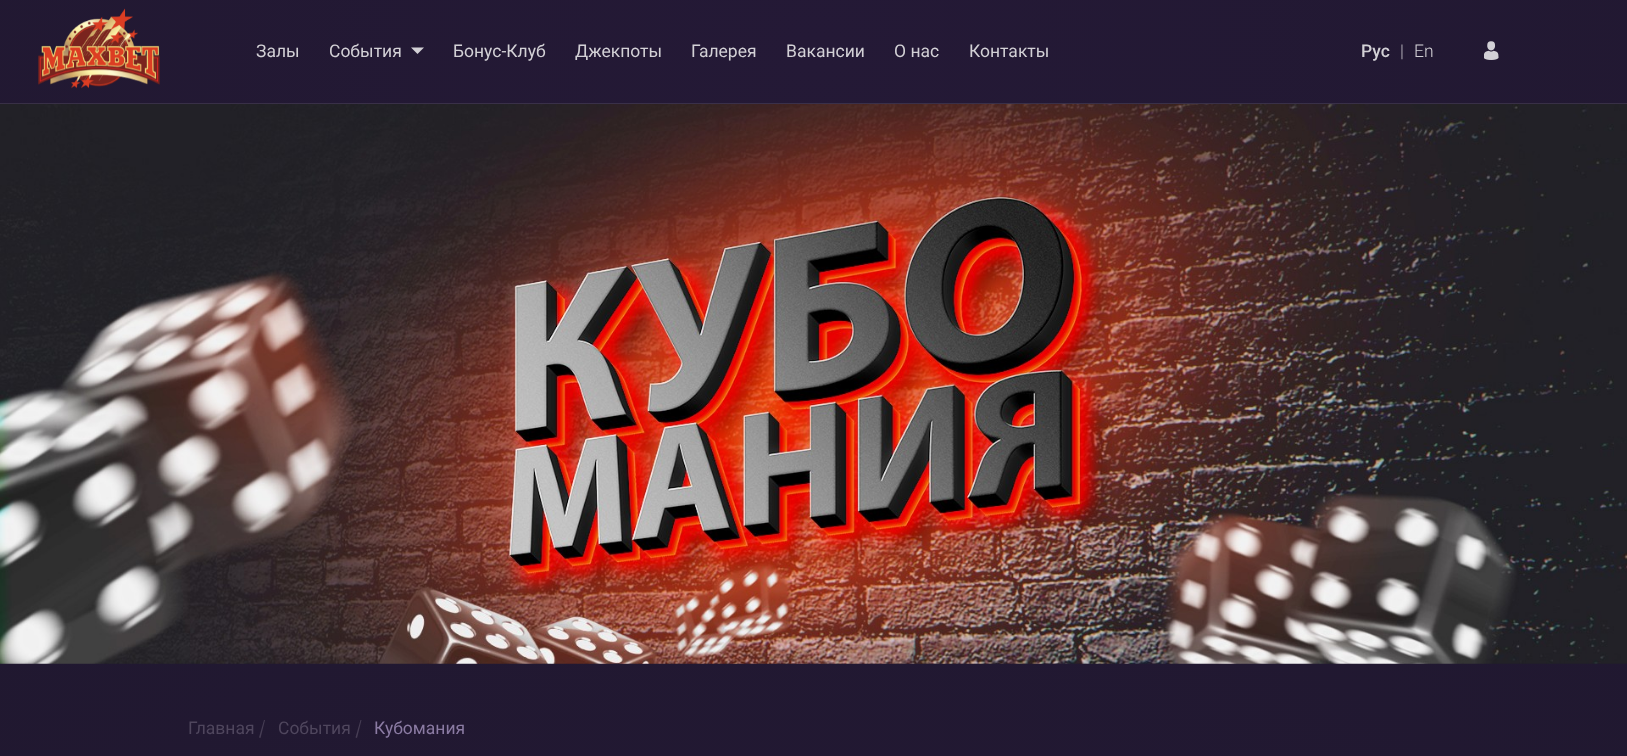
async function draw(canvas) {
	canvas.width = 1627;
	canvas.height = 756;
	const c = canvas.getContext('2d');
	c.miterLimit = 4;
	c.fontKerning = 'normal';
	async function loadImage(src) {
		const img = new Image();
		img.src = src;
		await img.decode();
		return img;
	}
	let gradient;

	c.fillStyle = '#fff';
	c.fillRect(0, 0, 1627, 756);
	gradient = c.createRadialGradient(814, 1560, 0, 814, 1560, 4109);
	gradient.addColorStop(0, '#241936');
	gradient.addColorStop(1, '#181622');
	c.fillStyle = gradient;
	c.fillRect(0, 663, 1627, 93);
	gradient = c.createRadialGradient(814, 51, 0, 814, 51, 4109);
	gradient.addColorStop(0, '#241936');
	gradient.addColorStop(1, '#181622');
	c.fillStyle = gradient;
	c.fillRect(0, 0, 1627, 103);
	gradient = c.createRadialGradient(814, 154, 0, 814, 154, 4109);
	gradient.addColorStop(0, '#241936');
	gradient.addColorStop(1, '#181622');
	c.fillStyle = gradient;
	c.fillRect(0, 103, 1627, 1);
	c.fillStyle = '#ffffff1a';
	c.fillRect(0, 103, 1627, 1);
	c.drawImage(await loadImage('img1.png'), 38, 8, 122, 81);
	c.font = '17.5px Roboto';
	c.fillStyle = '#d3d1d6';
	c.fillText('Залы', 256, 57);
	c.fillText('События', 329, 57);
	c.beginPath();
	c.moveTo(411, 47.5);
	c.lineTo(424, 47.5);
	c.lineTo(417.5, 54);
	c.closePath();
	c.fill();
	for (const [text, x, y] of [
		['Бонус-Клуб', 453, 57],
		['Джекпоты', 575, 57],
		['Галерея', 691, 57],
		['Вакансии', 786, 57],
		['О нас', 894, 57],
		['Контакты', 969, 57],
	]) {
		c.fillText(text, x, y);
	}
	c.font = '500 17.5px Roboto';
	c.fillText('Рус', 1361, 57);
	c.font = '300 17.5px Roboto';
	c.fillStyle = '#bdbac2';
	c.fillText('|', 1400, 57);
	c.fillStyle = '#d3d1d6';
	c.fillText('En', 1414, 57);
	c.drawImage(await loadImage('img2.png'), 1484, 41, 15, 19);
	c.drawImage(await loadImage('img3.png'), 0, 104, 1627, 560);
	c.font = '17.5px Roboto';
	c.fillStyle = '#4f465d';
	c.fillText('Главная', 188, 734);
	c.fillStyle = '#463d54';
	c.beginPath();
	c.moveTo(264, 720);
	c.lineTo(265, 720);
	c.lineTo(260.5, 738);
	c.lineTo(259, 737.5);
	c.closePath();
	c.fill();
	c.fillStyle = '#4f465d';
	c.fillText('События', 278, 734);
	c.fillStyle = '#463d54';
	c.beginPath();
	c.moveTo(360.5, 720);
	c.lineTo(361.5, 720);
	c.lineTo(357, 738);
	c.lineTo(355.5, 737.5);
	c.closePath();
	c.fill();
	c.fillStyle = '#8b7ba3';
	c.fillText('Кубомания', 374, 734);
}

draw(document.querySelector('canvas'));
